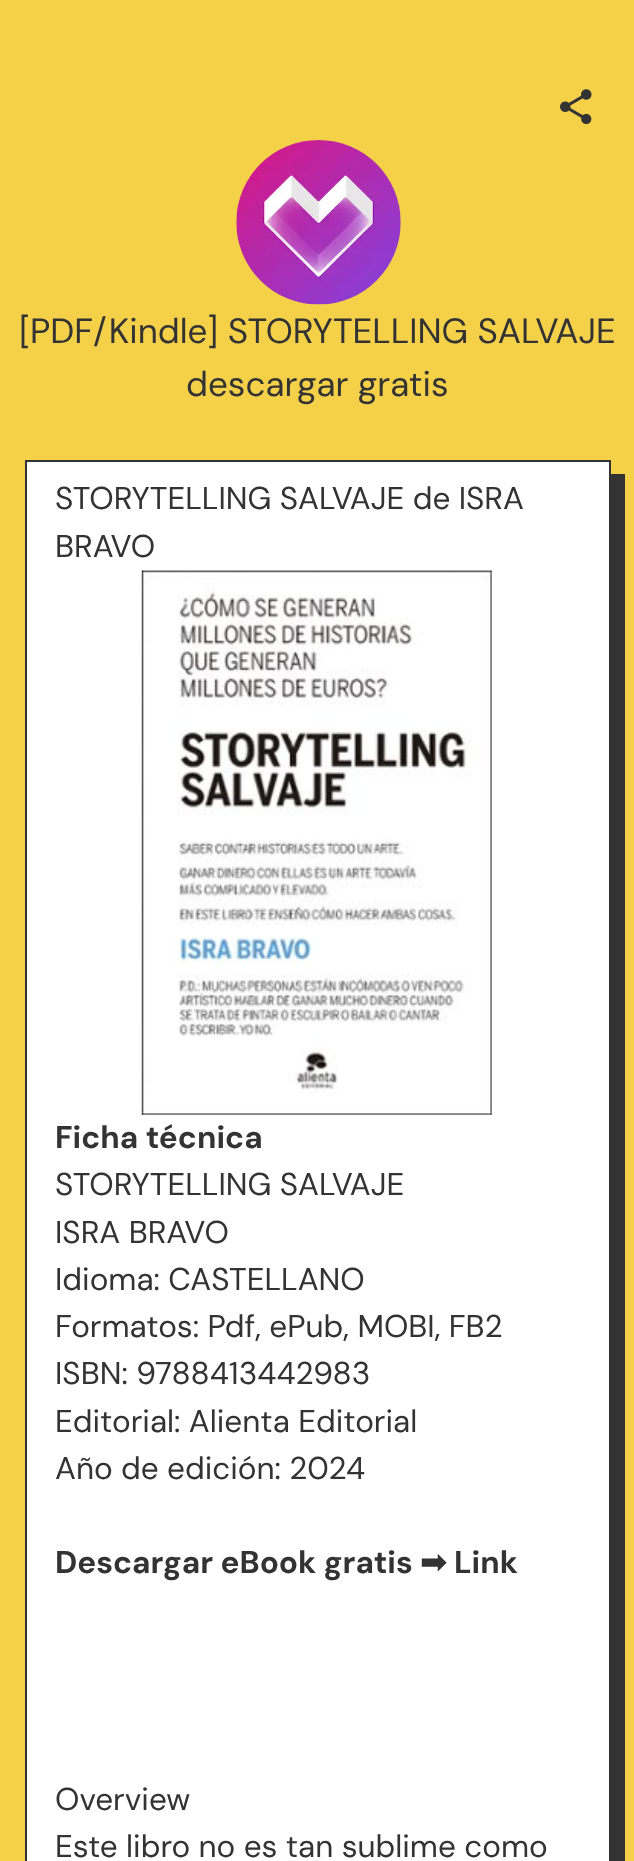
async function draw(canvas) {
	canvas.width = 634;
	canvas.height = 1861;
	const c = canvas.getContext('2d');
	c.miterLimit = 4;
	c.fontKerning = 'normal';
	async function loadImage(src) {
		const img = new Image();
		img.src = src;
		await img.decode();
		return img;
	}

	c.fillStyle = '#f5d049';
	c.fillRect(0, 0, 634, 1861);
	c.drawImage(await loadImage('img1.png'), 560, 89, 32, 36);
	c.drawImage(await loadImage('img2.png'), 236, 140, 165, 165);
	c.font = '35px DM Sans';
	c.fillStyle = '#333';
	c.fillText('[PDF/Kindle] STORYTELLING SALVAJE', 19, 343);
	c.fillText('descargar gratis', 186, 396);
	c.beginPath();
	c.moveTo(39, 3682);
	c.lineTo(39, 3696);
	c.lineTo(625, 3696);
	c.lineTo(625, 474);
	c.lineTo(611, 474);
	c.lineTo(611, 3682);
	c.closePath();
	c.fill();
	c.fillStyle = '#fff';
	c.beginPath();
	c.rect(26, 461, 584, 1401);
	c.fill();
	c.strokeStyle = '#333';
	c.lineWidth = 2;
	c.stroke();
	c.font = '31.5px DM Sans';
	c.fillStyle = '#333';
	c.fillText('STORYTELLING SALVAJE de ISRA', 55, 509);
	c.fillText('BRAVO', 55, 557);
	c.drawImage(await loadImage('img3.png'), 141, 570, 351, 545);
	c.font = 'bold 31.5px DM Sans';
	c.fillText('Ficha técnica', 55, 1148);
	c.font = '31.5px DM Sans';
	for (const [text, x, y] of [
		['STORYTELLING SALVAJE', 55, 1195],
		['ISRA BRAVO', 55, 1243],
		['Idioma: CASTELLANO', 55, 1290],
		['Formatos: Pdf, ePub, MOBI, FB2', 55, 1337],
		['ISBN: 9788413442983', 55, 1384],
		['Editorial: Alienta Editorial', 55, 1432],
		['Año de edición: 2024', 55, 1479],
	]) {
		c.fillText(text, x, y);
	}
	c.font = 'bold 31.5px DM Sans';
	c.fillText('Descargar eBook gratis', 55, 1573);
	c.font = 'bold 31.5px DejaVu Sans';
	c.fillText('➡', 420, 1573);
	c.font = 'bold 31.5px DM Sans';
	c.fillText('Link', 454, 1573);
	c.font = '31.5px DM Sans';
	c.fillText('Overview', 55, 1810);
	c.fillText('Este libro no es tan sublime como', 55, 1857);
}

draw(document.querySelector('canvas'));
